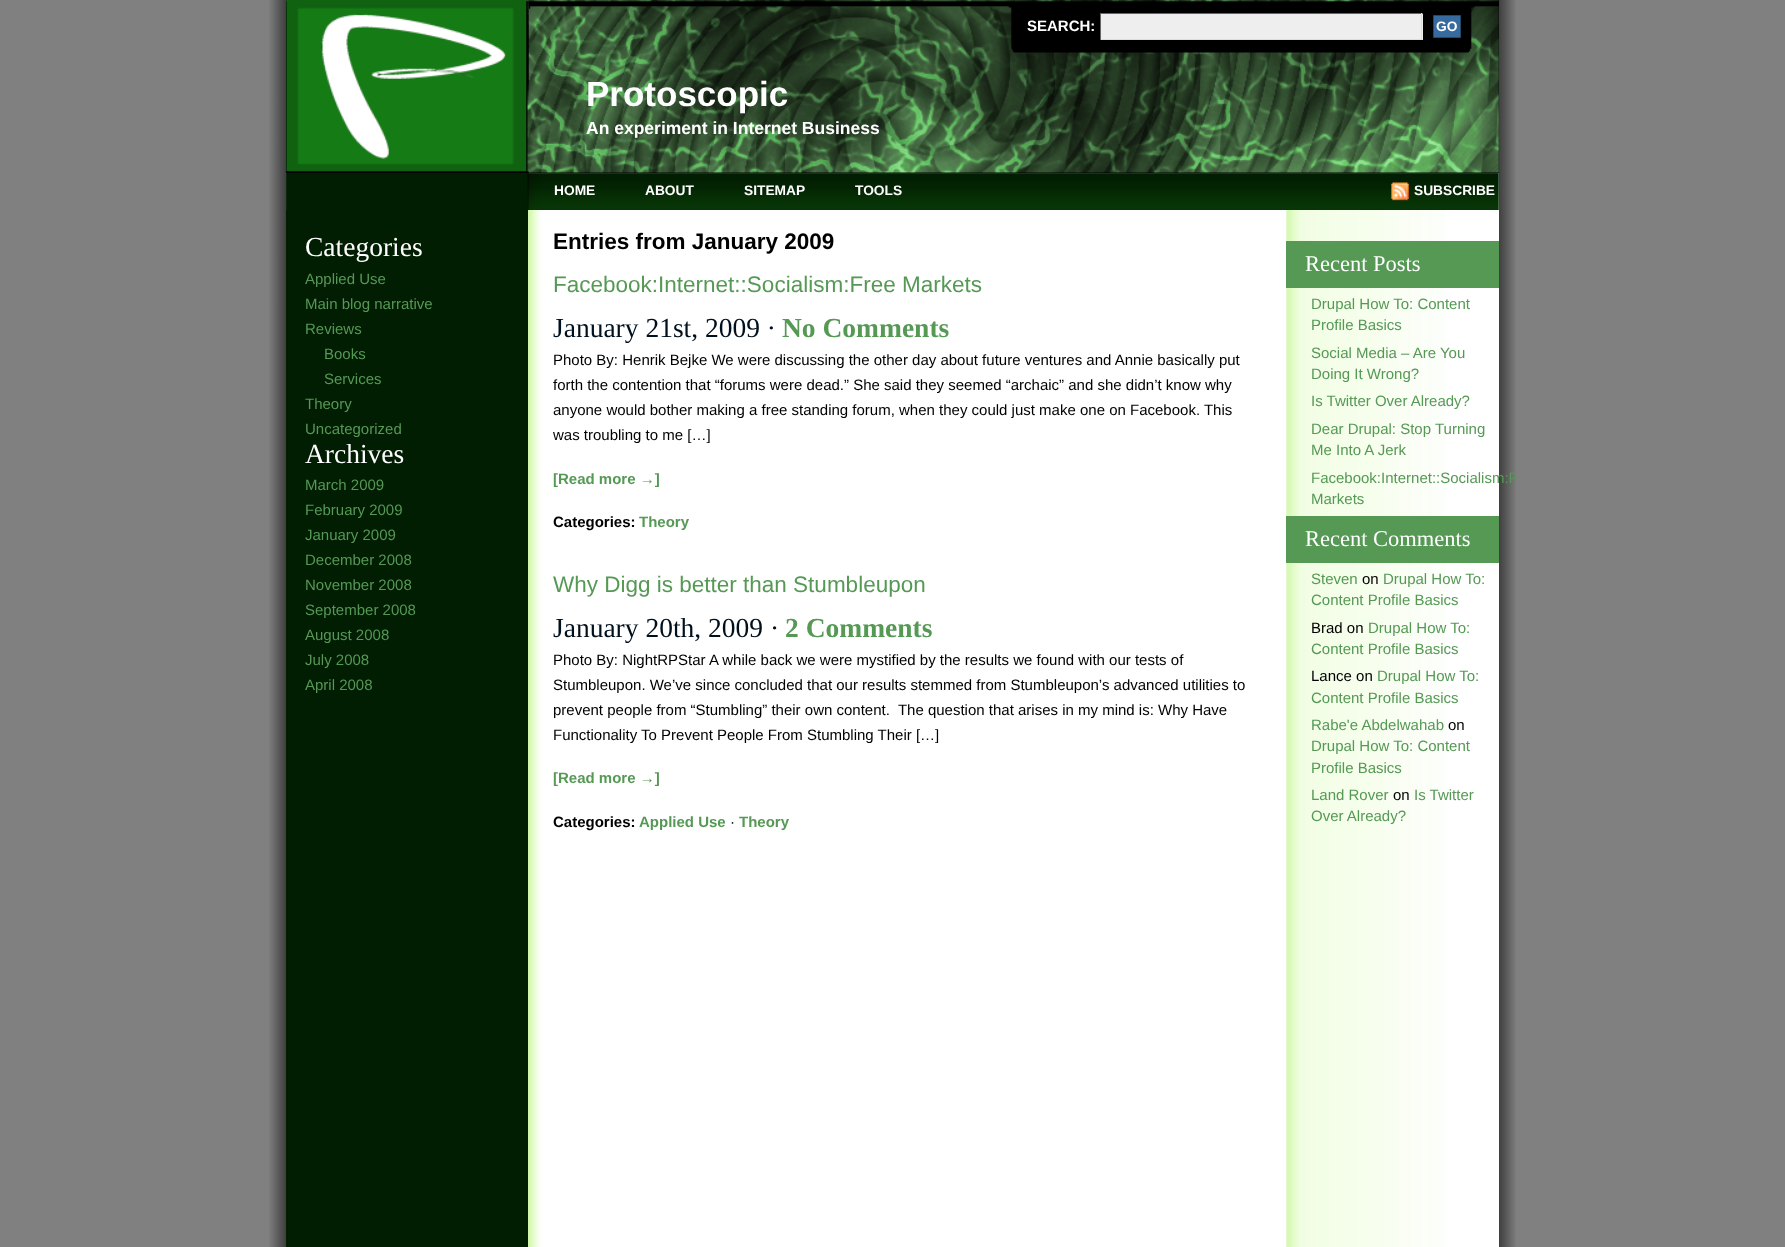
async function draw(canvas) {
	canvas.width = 1785;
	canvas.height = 1247;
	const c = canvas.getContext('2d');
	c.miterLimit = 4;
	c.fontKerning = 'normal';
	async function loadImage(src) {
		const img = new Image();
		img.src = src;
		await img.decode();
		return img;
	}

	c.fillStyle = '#808080';
	c.fillRect(0, 0, 1785, 1247);
	c.drawImage(await loadImage('img1.png'), 269, 0, 1247, 1247);
	c.fillStyle = '#fff';
	c.fillRect(286, 173, 1213, 1074);
	c.drawImage(await loadImage('img2.png'), 286, 173, 1159, 1074);
	c.fillStyle = '#000';
	c.fillRect(286, 0, 1213, 173);
	c.drawImage(await loadImage('img3.png'), 286, 0, 1213, 173);
	c.drawImage(await loadImage('img4.png'), 286, 0, 241, 172);
	c.font = 'bold 15px Liberation Sans';
	c.fillStyle = '#fff';
	c.fillText('SEARCH:', 1027, 31);
	for (const [x, y, w, h, color] of [
		[1101, 14, 322, 25, '#eee'],
		[1100, 13, 323, 1, '#666'],
		[1421, 13, 1, 27, '#ddd'],
		[1100, 39, 323, 1, '#ddd'],
		[1100, 13, 1, 27, '#666'],
	]) {
		c.fillStyle = color;
		c.fillRect(x, y, w, h);
	}
	c.fillStyle = '#376b9d';
	c.beginPath();
	c.rect(1433.5, 15.5, 27, 22);
	c.fill();
	c.strokeStyle = '#234b69';
	c.stroke();
	c.font = 'bold 13.75px Liberation Sans';
	c.fillStyle = '#fff';
	c.fillText('GO', 1436, 31);
	c.font = 'bold 35px Liberation Sans';
	c.fillText('Protoscopic', 586, 106);
	c.font = 'bold 17.5px Liberation Sans';
	c.fillText('An experiment in Internet Business', 586, 134);
	c.drawImage(await loadImage('img5.png'), 286, 173, 1213, 37);
	c.font = 'bold 13.75px Liberation Sans';
	for (const [text, x, y] of [
		['HOME', 554, 195],
		['ABOUT', 645, 195],
		['SITEMAP', 744, 195],
		['TOOLS', 855, 195],
	]) {
		c.fillText(text, x, y);
	}
	c.drawImage(await loadImage('img6.png'), 1391, 182, 18, 19);
	c.fillText('SUBSCRIBE', 1414, 195);
	c.fillStyle = '#011d02';
	c.fillRect(286, 210, 242, 1037);
	c.font = '27.5px Liberation Serif';
	c.fillStyle = '#fff';
	c.fillText('Categories', 305, 256);
	c.font = '15px Liberation Sans';
	c.fillStyle = '#595';
	for (const [text, x, y] of [
		['Applied Use', 305, 284],
		['Main blog narrative', 305, 309],
		['Reviews', 305, 334],
		['Books', 324, 359],
		['Services', 324, 384],
		['Theory', 305, 409],
		['Uncategorized', 305, 434],
	]) {
		c.fillText(text, x, y);
	}
	c.font = '27.5px Liberation Serif';
	c.fillStyle = '#fff';
	c.fillText('Archives', 305, 463);
	c.font = '15px Liberation Sans';
	c.fillStyle = '#595';
	for (const [text, x, y] of [
		['March 2009', 305, 490],
		['February 2009', 305, 515],
		['January 2009', 305, 540],
		['December 2008', 305, 565],
		['November 2008', 305, 590],
		['September 2008', 305, 615],
		['August 2008', 305, 640],
		['July 2008', 305, 665],
		['April 2008', 305, 690],
	]) {
		c.fillText(text, x, y);
	}
	c.font = 'bold 22.5px Liberation Sans';
	c.fillStyle = '#000';
	c.fillText('Entries from January 2009', 553, 249);
	c.font = '22.5px Liberation Sans';
	c.fillStyle = '#595';
	c.fillText('Facebook:Internet::Socialism:Free Markets', 553, 292);
	c.font = '27.5px Liberation Serif';
	c.fillStyle = '#01101d';
	c.fillText('January 21st, 2009 ·', 553, 337);
	c.font = 'bold 27.5px Liberation Serif';
	c.fillStyle = '#595';
	c.fillText('No Comments', 782, 337);
	c.font = '15px Liberation Sans';
	c.fillStyle = '#000';
	for (const [text, x, y] of [
		['Photo By: Henrik Bejke We were discussing the other day about future ventures and Annie basically put', 553, 365],
		['forth the contention that “forums were dead.” She said they seemed “archaic” and she didn’t know why', 553, 390],
		['anyone would bother making a free standing forum, when they could just make one on Facebook. This', 553, 415],
		['was troubling to me […]', 553, 440],
	]) {
		c.fillText(text, x, y);
	}
	c.font = 'bold 15px Liberation Sans';
	c.fillStyle = '#595';
	c.fillText('[Read more →]', 553, 484);
	c.fillStyle = '#000';
	c.fillText('Categories:', 553, 527);
	c.fillStyle = '#595';
	c.fillText('Theory', 639, 527);
	c.font = '22.5px Liberation Sans';
	c.fillText('Why Digg is better than Stumbleupon', 553, 592);
	c.font = '27.5px Liberation Serif';
	c.fillStyle = '#01101d';
	c.fillText('January 20th, 2009 ·', 553, 637);
	c.font = 'bold 27.5px Liberation Serif';
	c.fillStyle = '#595';
	c.fillText('2 Comments', 785, 637);
	c.font = '15px Liberation Sans';
	c.fillStyle = '#000';
	for (const [text, x, y] of [
		['Photo By: NightRPStar A while back we were mystified by the results we found with our tests of', 553, 665],
		['Stumbleupon. We’ve since concluded that our results stemmed from Stumbleupon’s advanced utilities to', 553, 690],
		['prevent people from “Stumbling” their own content.  The question that arises in my mind is: Why Have', 553, 715],
		['Functionality To Prevent People From Stumbling Their […]', 553, 740],
	]) {
		c.fillText(text, x, y);
	}
	c.font = 'bold 15px Liberation Sans';
	c.fillStyle = '#595';
	c.fillText('[Read more →]', 553, 783);
	c.fillStyle = '#000';
	c.fillText('Categories:', 553, 827);
	c.fillStyle = '#595';
	c.fillText('Applied Use', 639, 827);
	c.font = '15px Liberation Sans';
	c.fillStyle = '#000';
	c.fillText('·', 730, 827);
	c.font = 'bold 15px Liberation Sans';
	c.fillStyle = '#595';
	c.fillText('Theory', 739, 827);
	c.fillRect(1286, 241, 213, 47);
	c.font = '22.5px Liberation Serif';
	c.fillStyle = '#fff';
	c.fillText('Recent Posts', 1305, 271);
	c.font = '15px Liberation Sans';
	c.fillStyle = '#595';
	for (const [text, x, y] of [
		['Drupal How To: Content', 1311, 309],
		['Profile Basics', 1311, 330],
		['Social Media – Are You', 1311, 358],
		['Doing It Wrong?', 1311, 379],
		['Is Twitter Over Already?', 1311, 406],
		['Dear Drupal: Stop Turning', 1311, 434],
		['Me Into A Jerk', 1311, 455],
		['Facebook:Internet::Socialism:F', 1311, 483],
		['Markets', 1311, 504],
	]) {
		c.fillText(text, x, y);
	}
	c.fillRect(1286, 516, 213, 47);
	c.font = '22.5px Liberation Serif';
	c.fillStyle = '#fff';
	c.fillText('Recent Comments', 1305, 546);
	c.font = '15px Liberation Sans';
	c.fillStyle = '#595';
	c.fillText('Steven', 1311, 584);
	c.fillStyle = '#000';
	c.fillText('on', 1362, 584);
	c.fillStyle = '#595';
	c.fillText('Drupal How To:', 1383, 584);
	c.fillText('Content Profile Basics', 1311, 605);
	c.fillStyle = '#000';
	c.fillText('Brad on', 1311, 633);
	c.fillStyle = '#595';
	c.fillText('Drupal How To:', 1368, 633);
	c.fillText('Content Profile Basics', 1311, 654);
	c.fillStyle = '#000';
	c.fillText('Lance on', 1311, 681);
	c.fillStyle = '#595';
	for (const [text, x, y] of [
		['Drupal How To:', 1377, 681],
		['Content Profile Basics', 1311, 703],
		['Rabe\'e Abdelwahab', 1311, 730],
	]) {
		c.fillText(text, x, y);
	}
	c.fillStyle = '#000';
	c.fillText('on', 1448, 730);
	c.fillStyle = '#595';
	for (const [text, x, y] of [
		['Drupal How To: Content', 1311, 751],
		['Profile Basics', 1311, 773],
		['Land Rover', 1311, 800],
	]) {
		c.fillText(text, x, y);
	}
	c.fillStyle = '#000';
	c.fillText('on', 1393, 800);
	c.fillStyle = '#595';
	c.fillText('Is Twitter', 1414, 800);
	c.fillText('Over Already?', 1311, 821);
}

draw(document.querySelector('canvas'));
